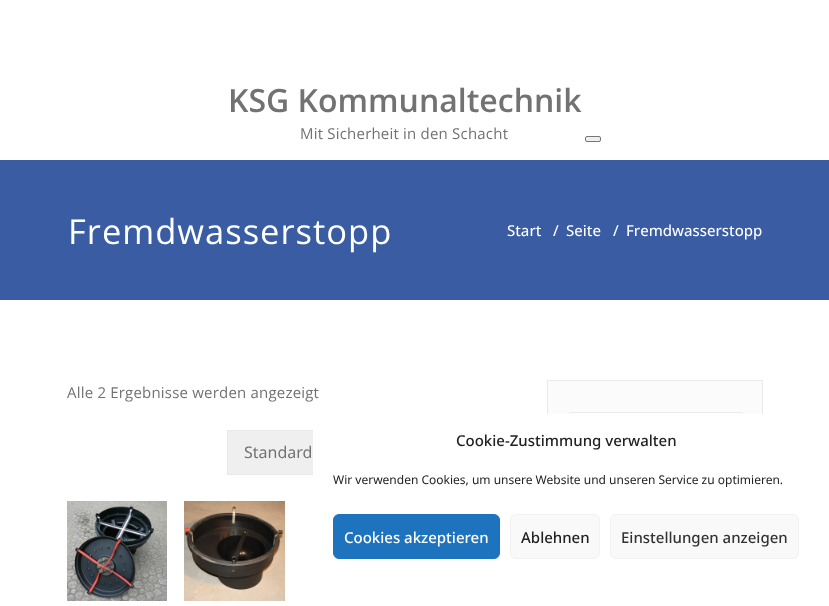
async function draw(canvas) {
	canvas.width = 829;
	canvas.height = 606;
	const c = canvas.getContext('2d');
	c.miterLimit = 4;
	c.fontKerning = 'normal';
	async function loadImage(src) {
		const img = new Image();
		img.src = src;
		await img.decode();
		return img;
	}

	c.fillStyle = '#fff';
	c.fillRect(0, 0, 829, 606);
	c.font = '600 32px Open Sans';
	c.fillStyle = '#727272';
	c.fillText('KSG Kommunaltechnik', 228, 112);
	c.letterSpacing = '0.2px';
	c.font = '15px Open Sans';
	c.fillText('Mit Sicherheit in den Schacht', 300, 139);
	c.fillStyle = '#efefef';
	c.beginPath();
	c.roundRect(585.5, 136.5, 15, 5, 1.5);
	c.fill();
	c.strokeStyle = '#767676';
	c.stroke();
	c.fillStyle = '#395ca3';
	c.fillRect(0, 160, 829, 140);
	c.letterSpacing = '1px';
	c.font = '34.5px Open Sans';
	c.fillStyle = '#fff';
	c.fillText('Fremdwasserstopp', 68, 244);
	c.letterSpacing = '0px';
	c.font = '500 15px Open Sans';
	for (const [text, x, y] of [
		['Start', 507, 236],
		['/', 553, 236],
		['Seite', 566, 236],
		['/', 613, 236],
		['Fremdwasserstopp', 626, 236],
	]) {
		c.fillText(text, x, y);
	}
	c.letterSpacing = '0.2px';
	c.font = '15px Open Sans';
	c.fillStyle = '#727272';
	c.fillText('Alle 2 Ergebnisse werden angezeigt', 67, 398);
	c.fillStyle = '#efefef';
	c.fillRect(228, 431, 85, 43);
	c.strokeStyle = '#e9e9e9';
	c.strokeRect(227.5, 430.5, 295, 44);
	c.letterSpacing = '0px';
	c.font = '16px Noto Sans';
	c.fillStyle = '#727272';
	c.fillText('Standard', 244, 458);
	c.drawImage(await loadImage('img1.png'), 67, 501, 100, 100);
	c.drawImage(await loadImage('img2.png'), 184, 501, 101, 100);
	c.fillStyle = '#fbfbfb';
	c.fillRect(548, 381, 214, 33);
	c.strokeRect(547.5, 380.5, 215, 138);
	c.fillStyle = '#fff';
	c.beginPath();
	c.roundRect(569.5, 412.5, 173, 44, 1.5);
	c.fill();
	c.stroke();
	c.beginPath();
	c.roundRect(313, 414, 506, 182, 12);
	c.fill();
	c.font = '500 15px Noto Sans';
	c.fillStyle = '#222';
	c.fillText('Cookie-Zustimmung verwalten', 456, 446);
	c.font = '12px Noto Sans';
	c.fillText('Wir verwenden Cookies, um unsere Website und unseren Service zu optimieren.', 333, 484);
	c.fillStyle = '#1e73be';
	c.beginPath();
	c.roundRect(333.5, 514.5, 166, 44, 5.5);
	c.fill();
	c.strokeStyle = '#1e73be';
	c.stroke();
	c.font = '500 15px Noto Sans';
	c.fillStyle = '#fff';
	c.fillText('Cookies akzeptieren', 344, 543);
	c.fillStyle = '#f9f9f9';
	c.beginPath();
	c.roundRect(510.5, 514.5, 89, 44, 5.5);
	c.fill();
	c.strokeStyle = '#f2f2f2';
	c.stroke();
	c.fillStyle = '#222';
	c.fillText('Ablehnen', 521, 543);
	c.fillStyle = '#f9f9f9';
	c.beginPath();
	c.roundRect(610.5, 514.5, 188, 44, 5.5);
	c.fill();
	c.stroke();
	c.fillStyle = '#333';
	c.fillText('Einstellungen anzeigen', 621, 543);
}

draw(document.querySelector('canvas'));
